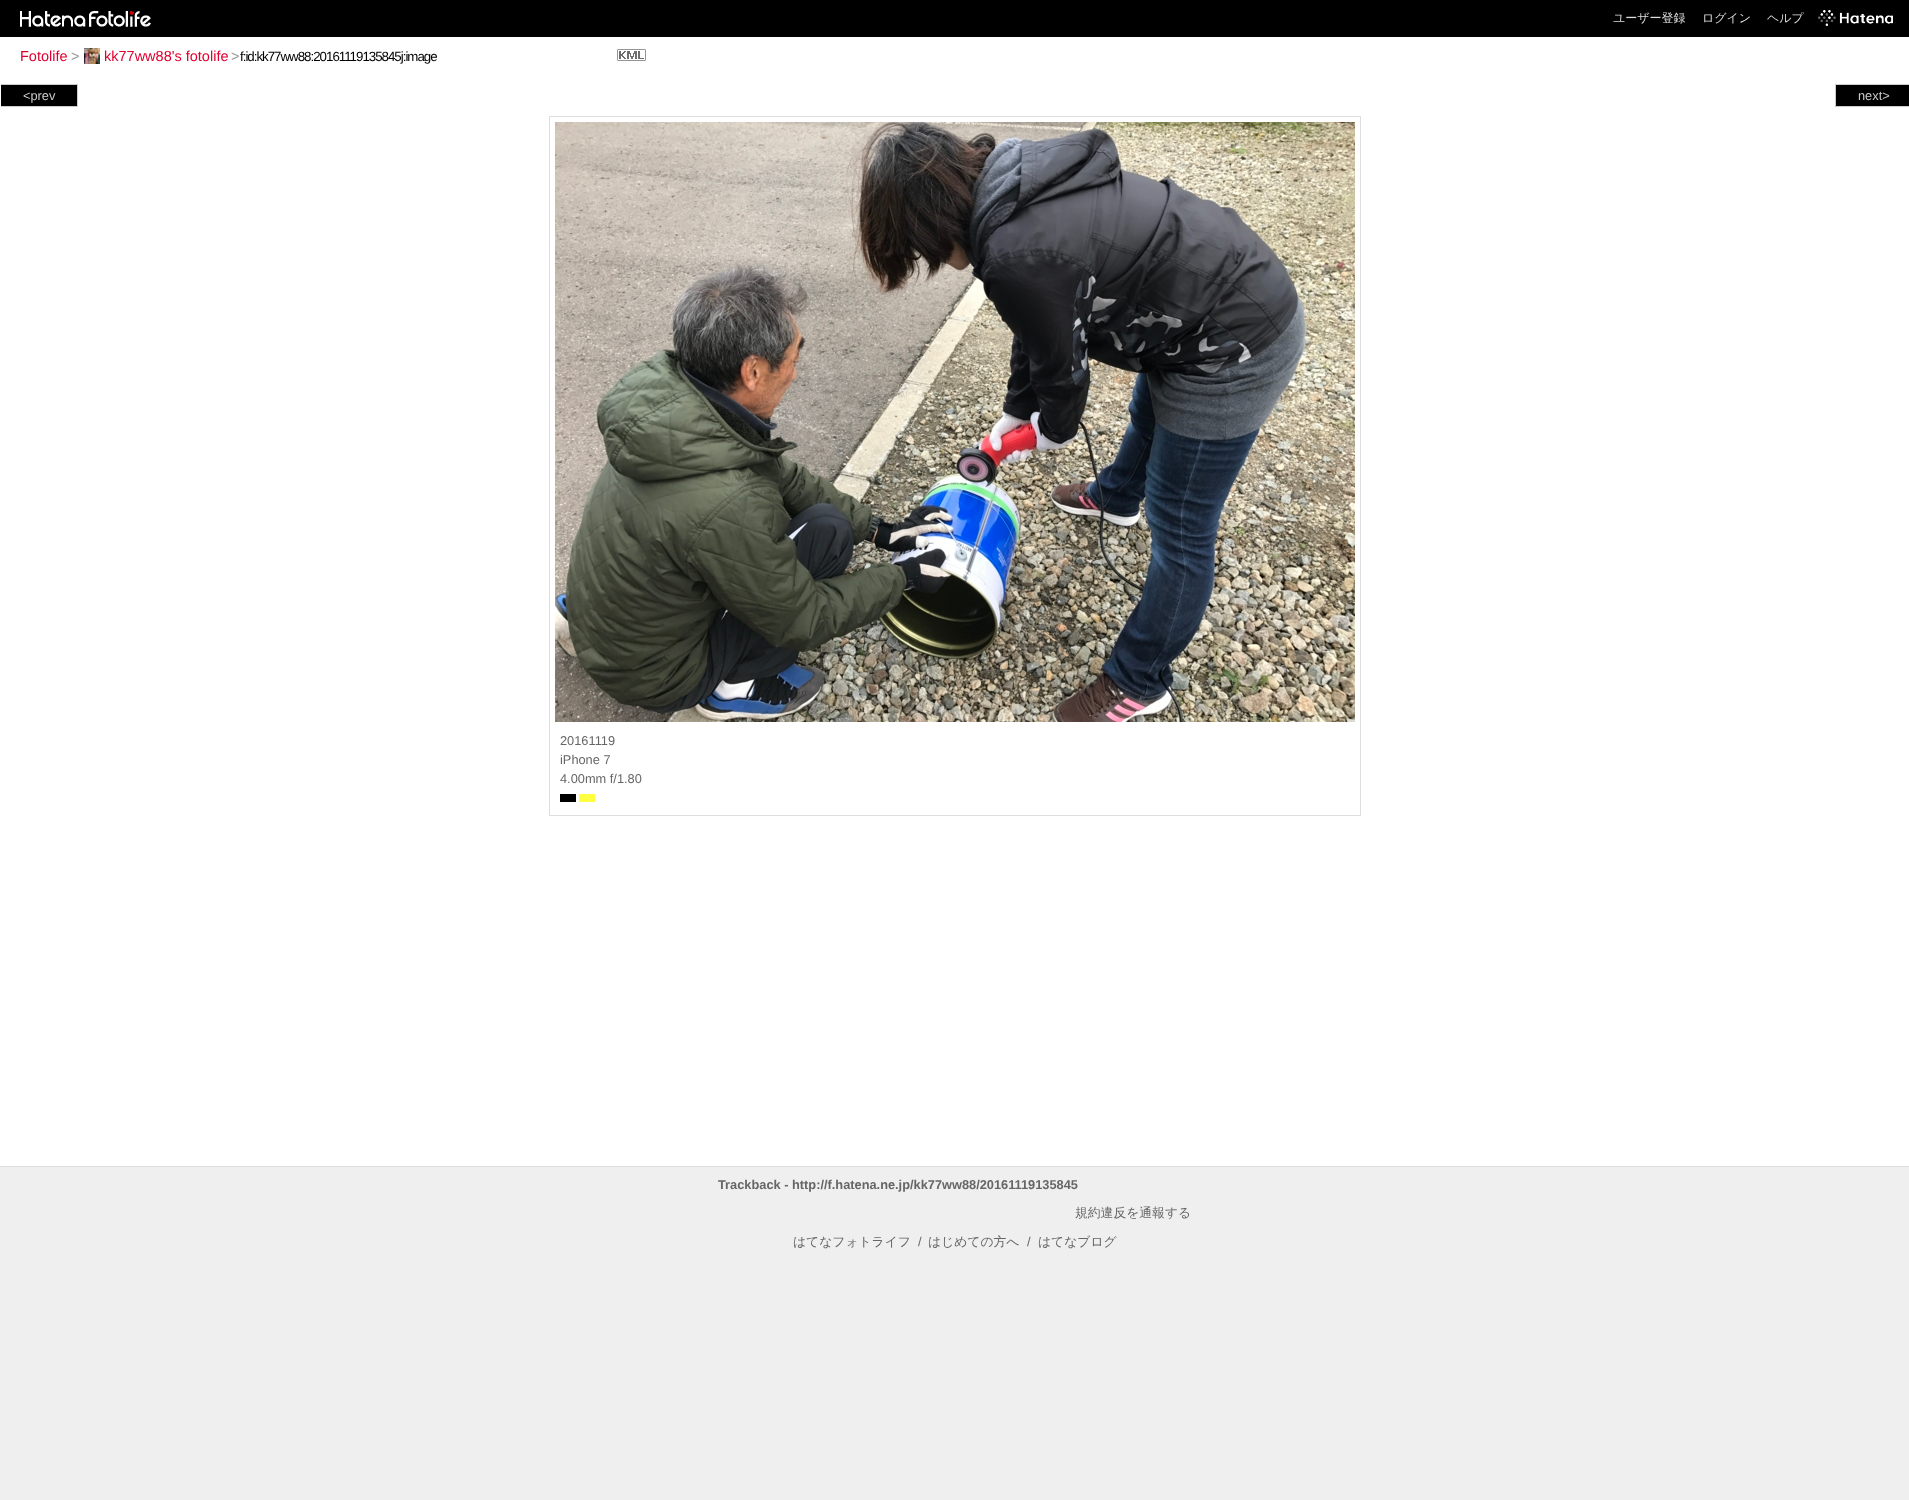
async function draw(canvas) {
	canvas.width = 1909;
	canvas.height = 1500;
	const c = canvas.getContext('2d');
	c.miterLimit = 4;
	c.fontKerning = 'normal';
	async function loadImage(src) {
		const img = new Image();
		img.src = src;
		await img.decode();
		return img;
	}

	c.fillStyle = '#efefef';
	c.fillRect(0, 0, 1909, 1500);
	c.fillStyle = '#000';
	c.fillRect(0, 0, 1909, 37);
	c.drawImage(await loadImage('img1.png'), 20, 11, 66, 16);
	c.drawImage(await loadImage('img2.png'), 89, 11, 62, 16);
	c.font = '500 12px WenQuanYi Zen Hei';
	c.fillStyle = '#ddd';
	for (const [text, x, y] of [
		['ユーザー登録', 1613, 22],
		['ログイン', 1702, 22],
		['ヘルプ', 1767, 22],
	]) {
		c.fillText(text, x, y);
	}
	c.drawImage(await loadImage('img3.png'), 1818, 10, 75, 16);
	c.fillStyle = '#fff';
	c.fillRect(0, 37, 1909, 1129);
	c.font = '14.5px Liberation Sans';
	c.fillStyle = '#de002f';
	c.fillText('Fotolife', 20, 61);
	c.fillStyle = '#999';
	c.fillText('>', 71, 61);
	c.drawImage(await loadImage('img4.png'), 84, 48, 16, 16);
	c.fillStyle = '#de002f';
	c.fillText('kk77ww88\'s fotolife', 104, 61);
	c.fillStyle = '#999';
	c.fillText('>', 231, 61);
	c.letterSpacing = '-1px';
	c.font = '13.3px Liberation Sans';
	c.fillStyle = '#000';
	c.fillText('f:id:kk77ww88:20161119135845j:image', 240, 61);
	c.drawImage(await loadImage('img5.png'), 617, 49, 29, 12);
	for (const [x, y, w, h, color] of [
		[0, 1166, 1909, 1, '#dedede'],
		[1, 85, 76, 21, '#000'],
		[1, 84, 77, 1, '#ccc'],
		[77, 84, 1, 23, '#ccc'],
		[1, 106, 77, 1, '#ccc'],
	]) {
		c.fillStyle = color;
		c.fillRect(x, y, w, h);
	}
	c.letterSpacing = '0px';
	c.font = '12.8px Liberation Sans';
	c.fillText('<prev', 23, 100);
	for (const [x, y, w, h, color] of [
		[1836, 85, 73, 21, '#000'],
		[1835, 84, 74, 1, '#ccc'],
		[1835, 106, 74, 1, '#ccc'],
		[1835, 84, 1, 23, '#ccc'],
	]) {
		c.fillStyle = color;
		c.fillRect(x, y, w, h);
	}
	c.fillText('next>', 1858, 100);
	c.strokeStyle = '#dedede';
	c.strokeRect(549.5, 116.5, 811, 699);
	c.drawImage(await loadImage('img6.png'), 555, 122, 800, 600);
	c.fillStyle = '#666';
	for (const [text, x, y] of [
		['20161119', 560, 745],
		['iPhone 7', 560, 764],
		['4.00mm f/1.80', 560, 783],
	]) {
		c.fillText(text, x, y);
	}
	c.fillStyle = '#000';
	c.fillRect(560, 794, 16, 8);
	c.fillStyle = '#ffff40';
	c.fillRect(579, 794, 16, 8);
	c.font = 'bold 12.8px Liberation Sans';
	c.fillStyle = '#666';
	c.fillText('Trackback - http://f.hatena.ne.jp/kk77ww88/20161119135845', 718, 1189);
	c.font = '500 12.8px WenQuanYi Zen Hei';
	c.fillText('規約違反を通報する', 1075, 1217);
	c.fillText('はてなフォトライフ', 793, 1246);
	c.font = '12.8px Liberation Sans';
	c.fillText('/', 918, 1246);
	c.font = '500 12.8px WenQuanYi Zen Hei';
	c.fillText('はじめての方へ', 928, 1246);
	c.font = '12.8px Liberation Sans';
	c.fillText('/', 1027, 1246);
	c.font = '500 12.8px WenQuanYi Zen Hei';
	c.fillText('はてなブログ', 1038, 1246);
}

draw(document.querySelector('canvas'));
